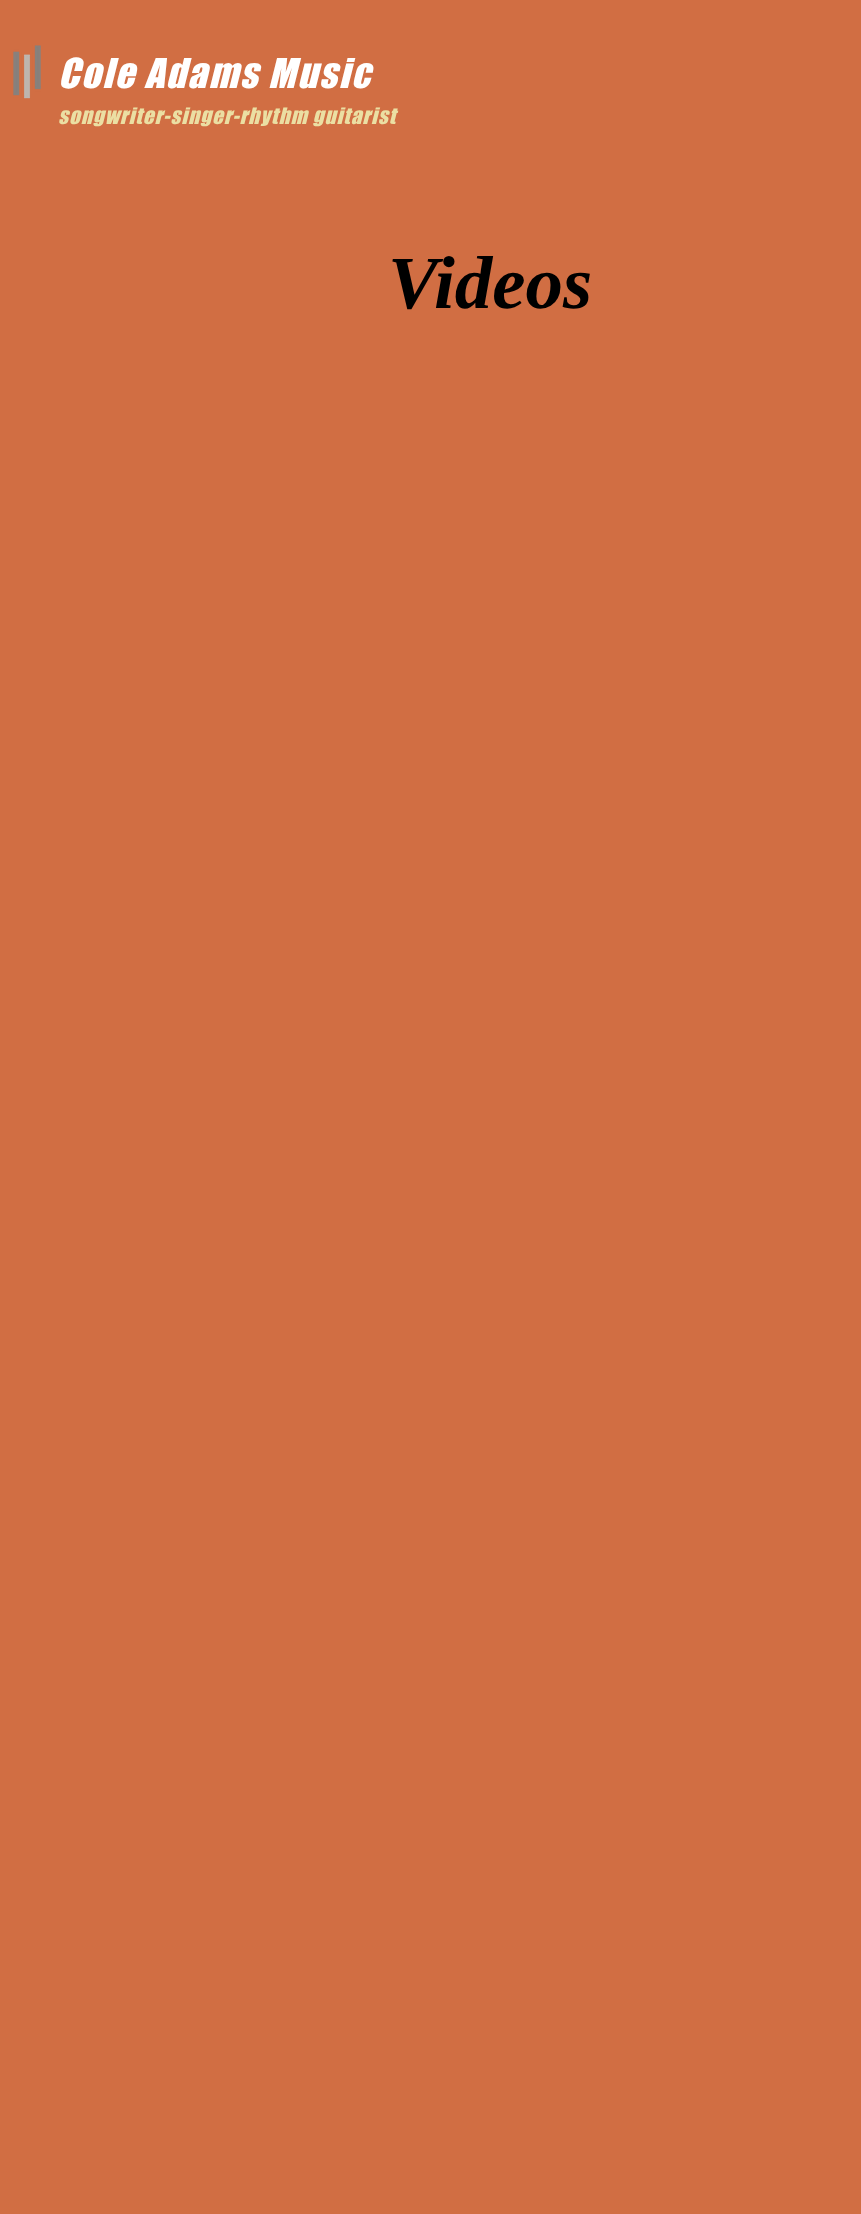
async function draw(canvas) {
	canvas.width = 861;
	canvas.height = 2214;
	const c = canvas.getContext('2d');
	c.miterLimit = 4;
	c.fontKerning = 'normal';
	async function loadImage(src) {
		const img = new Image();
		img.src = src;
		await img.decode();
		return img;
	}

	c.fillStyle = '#d16e43';
	c.fillRect(0, 0, 861, 2214);
	c.drawImage(await loadImage('img1.png'), 13, 45, 28, 54);
	c.letterSpacing = '1.9px';
	c.font = 'italic 38px "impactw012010"';
	c.fillStyle = '#fff';
	c.fillText('Cole Adams Music', 58, 88);
	c.letterSpacing = '1.05px';
	c.font = 'italic 21px "impactw012010"';
	c.fillStyle = '#ebdfa3';
	c.fillText('songwriter-singer-rhythm guitarist', 58, 124);
	c.letterSpacing = '0px';
	c.font = 'italic bold 75px Liberation Serif';
	c.fillStyle = '#000';
	c.fillText('Videos', 388, 308);
}

draw(document.querySelector('canvas'));
